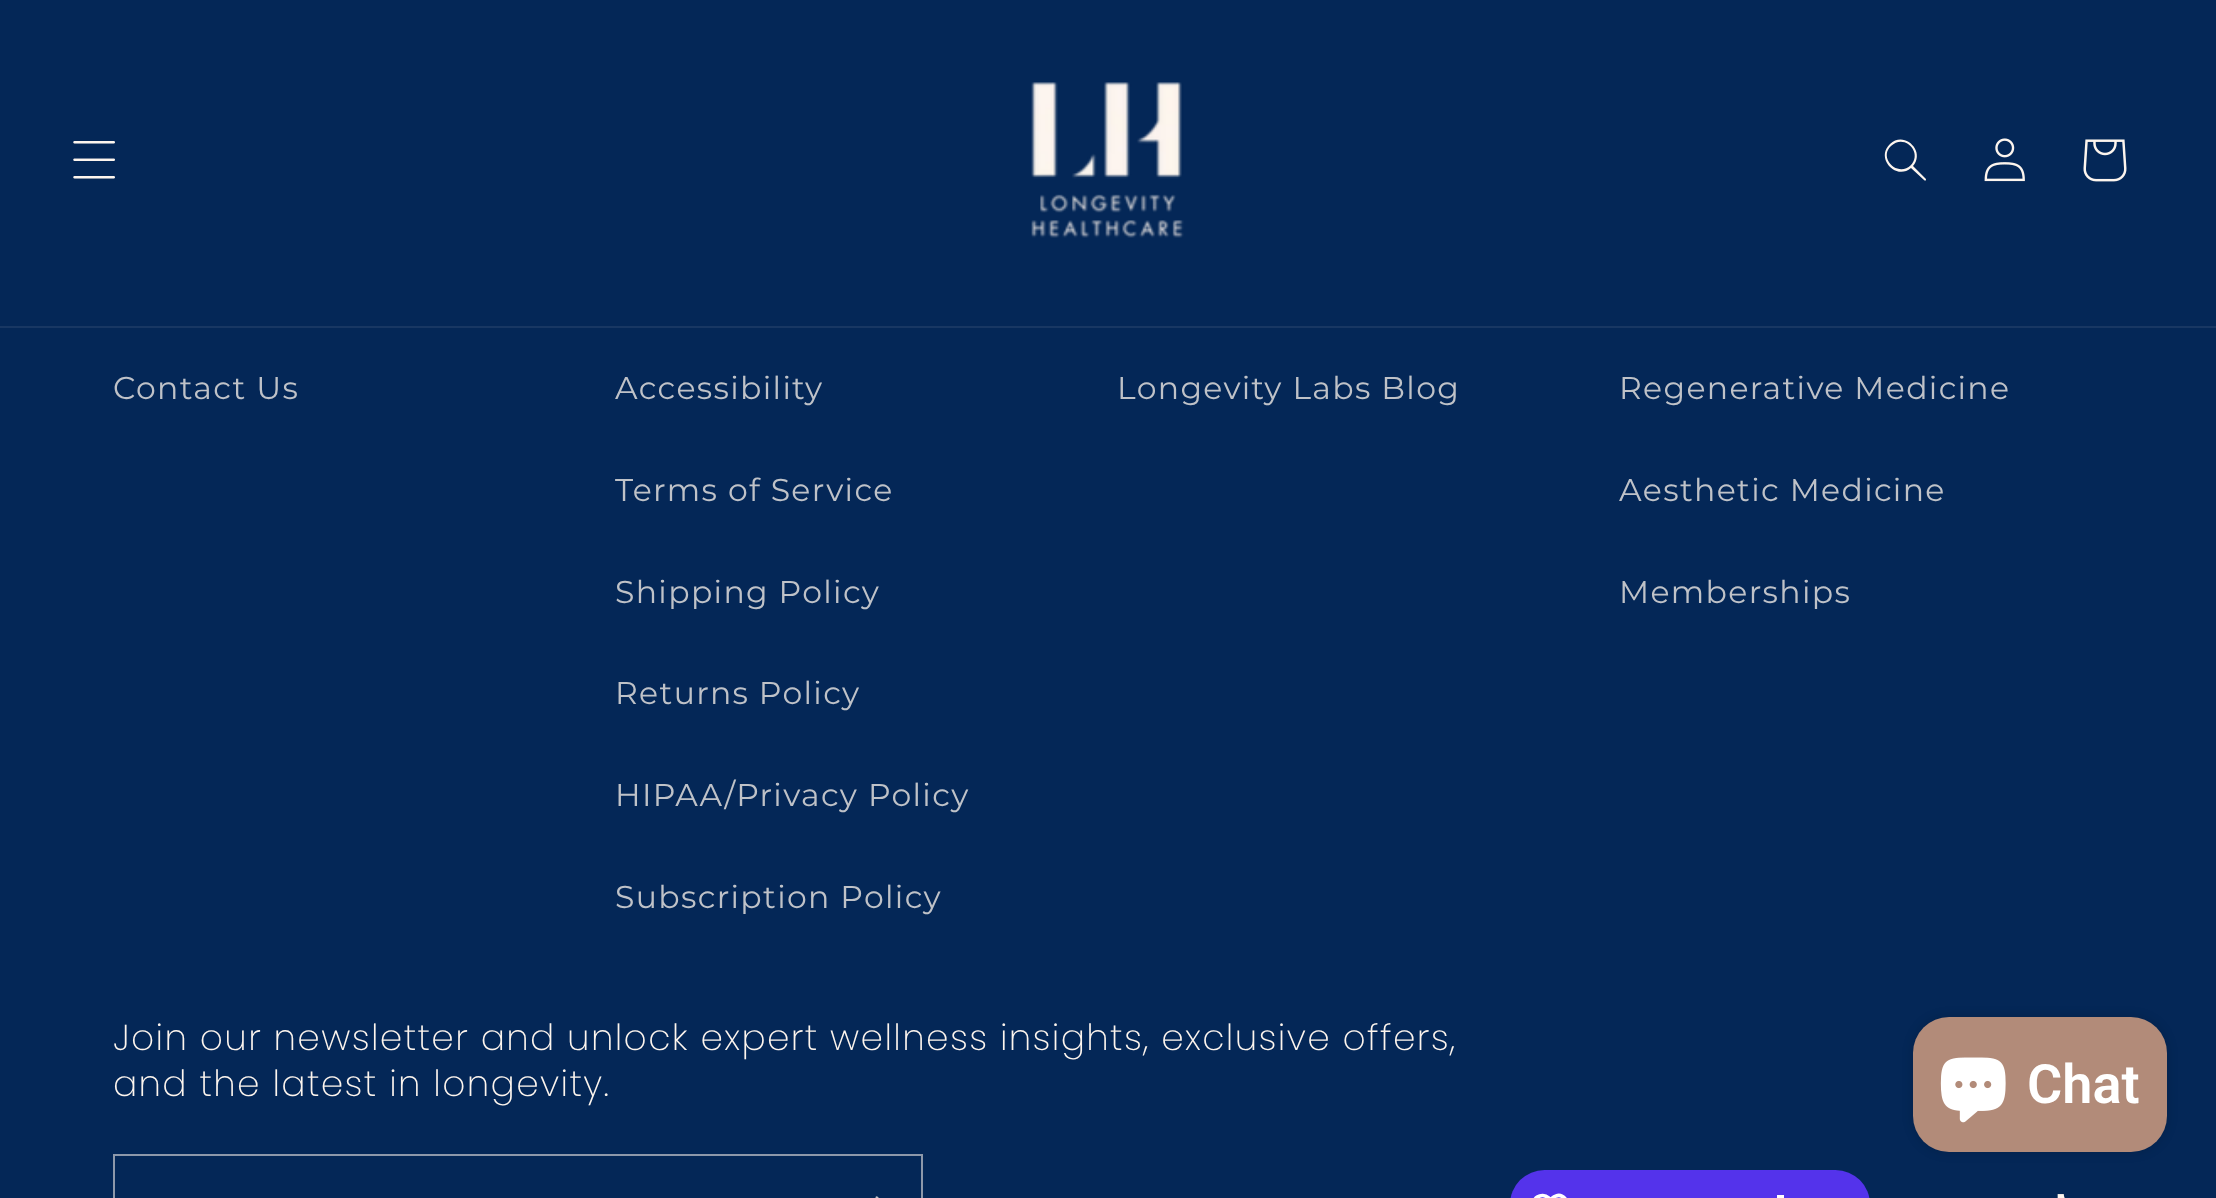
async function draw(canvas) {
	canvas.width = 2216;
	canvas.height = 1198;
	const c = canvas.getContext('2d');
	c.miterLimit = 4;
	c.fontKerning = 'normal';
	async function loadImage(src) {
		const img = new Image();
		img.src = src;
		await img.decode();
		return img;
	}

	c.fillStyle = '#042757';
	c.fillRect(0, 0, 2216, 1198);
	c.fillStyle = '#183763';
	c.fillRect(0, 326, 2216, 2);
	c.drawImage(await loadImage('img1.png'), 73, 141, 42, 38);
	c.drawImage(await loadImage('img2.png'), 1031, 82, 153, 156);
	c.fillStyle = '#fdf5ee';
	c.beginPath();
	c.moveTo(1911, 165);
	c.bezierCurveTo(1898, 178, 1878, 158, 1891, 146);
	c.bezierCurveTo(1904, 133, 1923, 152, 1911, 165);
	c.moveTo(1911, 168);
	c.bezierCurveTo(1896, 181, 1875, 158, 1890, 144);
	c.bezierCurveTo(1904, 130, 1926, 151, 1913, 166);
	c.lineTo(1926, 179);
	c.bezierCurveTo(1926, 181, 1925, 181, 1924, 180);
	c.closePath();
	c.fill('evenodd');
	c.drawImage(await loadImage('img3.png'), 1984, 138, 41, 44);
	c.drawImage(await loadImage('img4.png'), 2083, 139, 44, 43);
	c.letterSpacing = '1.35px';
	c.font = '31.5px Montserrat';
	c.fillStyle = '#bfc2c8';
	for (const [text, x, y] of [
		['Contact Us', 113, 399],
		['Accessibility', 615, 399],
		['Terms of Service', 615, 501],
		['Shipping Policy', 615, 603],
		['Returns Policy', 615, 704],
		['HIPAA/Privacy Policy', 615, 806],
		['Subscription Policy', 615, 908],
		['Longevity Labs Blog', 1117, 399],
		['Regenerative Medicine', 1619, 399],
		['Aesthetic Medicine', 1619, 501],
		['Memberships', 1619, 603],
	]) {
		c.fillText(text, x, y);
	}
	c.font = '300 36px Poppins';
	c.fillStyle = '#fdf5ee';
	c.fillText('Join our newsletter and unlock expert wellness insights, exclusive offers,', 113, 1050);
	c.fillText('and the latest in longevity.', 113, 1096);
	c.strokeStyle = '#8d98aa';
	c.lineWidth = 2;
	c.strokeRect(114, 1155, 808, 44);
	c.drawImage(await loadImage('img5.png'), 875, 1196, 4, 2);
	c.fillStyle = '#5433eb';
	c.beginPath();
	c.roundRect(1510, 1170, 360, 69, 40.5);
	c.fill();
	c.beginPath();
	c.moveTo(1548.5, 1198);
	c.lineTo(1550, 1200);
	c.bezierCurveTo(1552, 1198.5, 1553.5, 1196.5, 1556, 1196);
	c.bezierCurveTo(1562.5, 1193.5, 1569, 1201, 1566.5, 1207.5);
	c.bezierCurveTo(1565.5, 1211, 1562, 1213.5, 1560, 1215.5);
	c.lineTo(1550, 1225.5);
	c.lineTo(1540.5, 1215.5);
	c.bezierCurveTo(1538.5, 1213.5, 1535.5, 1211, 1534, 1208);
	c.bezierCurveTo(1530.5, 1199, 1541.5, 1191.5, 1548.5, 1198);
	c.closePath();
	c.strokeStyle = '#fff';
	c.lineWidth = 3.8;
	c.lineJoin = 'round';
	c.stroke();
	c.fillStyle = '#fff';
	c.fillRect(1777, 1195, 7, 3);
	c.drawImage(await loadImage('img6.png'), 2057, 1194, 8, 4);
	c.fillStyle = '#00000026';
	c.filter = 'blur(5.5px)';
	c.beginPath();
	c.roundRect(1913, 1017, 254, 135, 36);
	c.fill();
	c.filter = 'none';
	c.fillStyle = '#b28b79';
	c.beginPath();
	c.roundRect(1913, 1017, 254, 135, 36);
	c.fill();
	c.drawImage(await loadImage('img7.png'), 1940, 1057, 66, 66);
	c.letterSpacing = '0px';
	c.font = '600 54px Roboto';
	c.fillStyle = '#fff';
	c.fillText('Chat', 2027, 1103);
}

draw(document.querySelector('canvas'));
